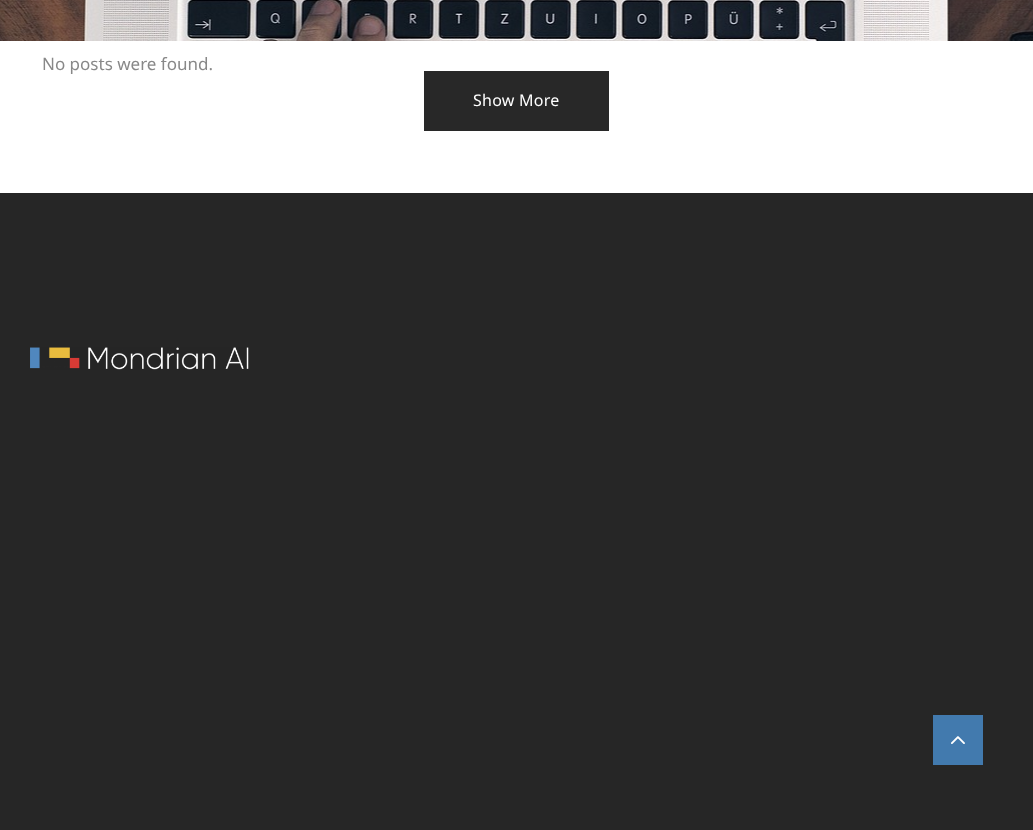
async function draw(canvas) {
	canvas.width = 1033;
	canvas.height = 830;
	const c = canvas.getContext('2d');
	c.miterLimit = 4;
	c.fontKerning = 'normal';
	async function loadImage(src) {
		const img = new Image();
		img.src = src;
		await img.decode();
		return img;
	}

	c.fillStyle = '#fff';
	c.fillRect(0, 0, 1033, 830);
	c.drawImage(await loadImage('img1.png'), 0, 0, 1033, 41);
	c.font = '17px Noto Sans';
	c.fillStyle = '#888';
	c.fillText('No posts were found.', 42, 70);
	c.fillStyle = '#282828';
	c.fillRect(424, 71, 185, 60);
	c.letterSpacing = '0.25px';
	c.font = '16px Noto Sans';
	c.fillStyle = '#fff';
	c.fillText('Show More', 473, 106);
	c.fillStyle = '#262626';
	c.fillRect(0, 193, 1033, 637);
	c.drawImage(await loadImage('img2.png'), 30, 347, 219, 23);
	c.fillStyle = '#427aae';
	c.fillRect(933, 715, 50, 50);
	c.drawImage(await loadImage('img3.png'), 951, 736, 14, 8);
}

draw(document.querySelector('canvas'));
